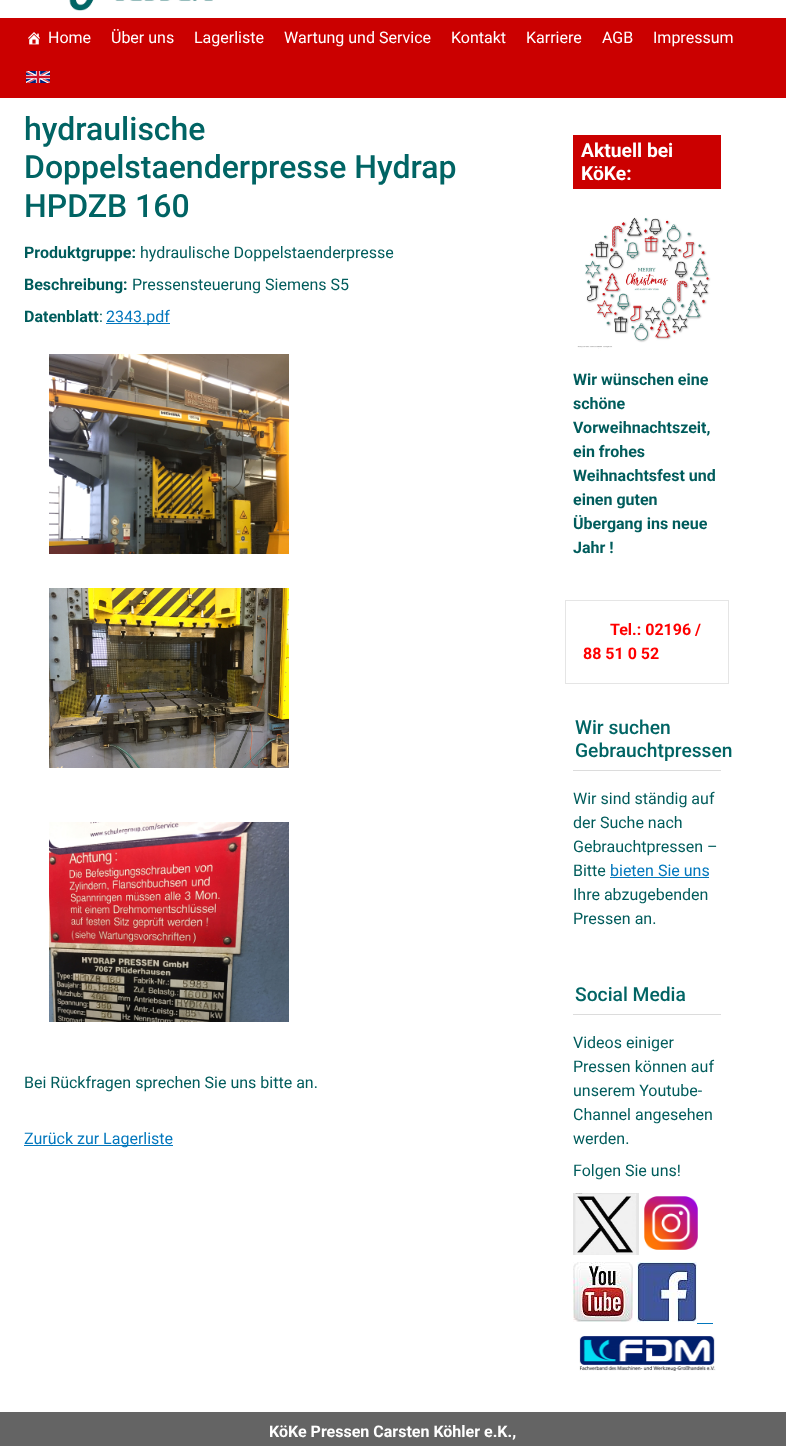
async function draw(canvas) {
	canvas.width = 786;
	canvas.height = 1446;
	const c = canvas.getContext('2d');
	c.miterLimit = 4;
	c.fontKerning = 'normal';
	async function loadImage(src) {
		const img = new Image();
		img.src = src;
		await img.decode();
		return img;
	}

	c.fillStyle = '#646464';
	c.fillRect(0, 0, 786, 1446);
	c.fillStyle = '#fff';
	c.fillRect(0, 0, 786, 18);
	c.drawImage(await loadImage('img1.png'), 69, 0, 144, 11);
	c.fillStyle = '#cb0000';
	c.fillRect(0, 18, 786, 80);
	c.drawImage(await loadImage('img2.png'), 28, 32, 12, 13);
	c.font = '16px Roboto';
	c.fillStyle = '#fff';
	for (const [text, x, y] of [
		['Home', 48, 43],
		['Über uns', 111, 43],
		['Lagerliste', 194, 43],
		['Wartung und Service', 284, 43],
		['Kontakt', 451, 43],
		['Karriere', 526, 43],
		['AGB', 602, 43],
		['Impressum', 653, 43],
	]) {
		c.fillText(text, x, y);
	}
	c.drawImage(await loadImage('img3.png'), 26, 71, 24, 12);
	c.fillRect(0, 98, 786, 1314);
	c.font = '500 32px Roboto';
	c.fillStyle = '#006464';
	for (const [text, x, y] of [
		['hydraulische', 24, 140],
		['Doppelstaenderpresse Hydrap', 24, 178],
		['HPDZB 160', 24, 217],
	]) {
		c.fillText(text, x, y);
	}
	c.font = 'bold 16px Roboto';
	c.fillStyle = '#005c5c';
	c.fillText('Produktgruppe:', 24, 258);
	c.font = '16px Roboto';
	c.fillText('hydraulische Doppelstaenderpresse', 140, 258);
	c.font = 'bold 16px Roboto';
	c.fillText('Beschreibung:', 24, 290);
	c.font = '16px Roboto';
	c.fillText('Pressensteuerung Siemens S5', 132, 290);
	c.font = 'bold 16px Roboto';
	c.fillText('Datenblatt', 24, 322);
	c.font = '16px Roboto';
	c.fillText(':', 99, 322);
	c.fillStyle = '#0277bd';
	c.fillRect(106, 323, 64, 1);
	c.fillText('2343.pdf', 106, 322);
	c.drawImage(await loadImage('img4.png'), 49, 354, 240, 200);
	c.drawImage(await loadImage('img5.png'), 49, 588, 240, 180);
	c.drawImage(await loadImage('img6.png'), 49, 822, 240, 200);
	c.fillStyle = '#005c5c';
	c.fillText('Bei Rückfragen sprechen Sie uns bitte an.', 24, 1088);
	c.fillStyle = '#0277bd';
	c.fillRect(24, 1145, 149, 1);
	c.fillText('Zurück zur Lagerliste', 24, 1144);
	c.fillStyle = '#cb0000';
	c.fillRect(573, 135, 148, 54);
	c.font = 'bold 19.25px Roboto';
	c.fillStyle = '#fff';
	c.fillText('Aktuell bei', 581, 157);
	c.fillText('KöKe:', 581, 180);
	c.drawImage(await loadImage('img7.png'), 577, 217, 134, 134);
	c.font = 'bold 16px Roboto';
	c.fillStyle = '#005c5c';
	for (const [text, x, y] of [
		['Wir wünschen eine', 573, 385],
		['schöne', 573, 409],
		['Vorweihnachtszeit,', 573, 433],
		['ein frohes', 573, 457],
		['Weihnachtsfest und', 573, 481],
		['einen guten', 573, 505],
		['Übergang ins neue', 573, 529],
		['Jahr !', 573, 553],
	]) {
		c.fillText(text, x, y);
	}
	c.strokeStyle = '#e5e5e5';
	c.strokeRect(565.5, 600.5, 163, 83);
	c.fillStyle = '#f00';
	c.fillText('Tel.: 02196 /', 610, 635);
	c.fillText('88 51 0 52', 583, 659);
	c.fillStyle = '#dcdcdc';
	c.fillRect(573, 770, 148, 1);
	c.font = '500 19.25px Roboto';
	c.fillStyle = '#006464';
	c.fillText('Wir suchen', 575, 734);
	c.fillText('Gebrauchtpressen', 575, 757);
	c.font = '16px Roboto';
	c.fillStyle = '#005c5c';
	for (const [text, x, y] of [
		['Wir sind ständig auf', 573, 804],
		['der Suche nach', 573, 828],
		['Gebrauchtpressen –', 573, 852],
		['Bitte', 573, 876],
	]) {
		c.fillText(text, x, y);
	}
	c.fillStyle = '#0277bd';
	c.fillText('bieten Sie uns', 610, 876);
	c.fillRect(610, 877, 99, 1);
	c.fillStyle = '#005c5c';
	c.fillText('Ihre abzugebenden', 573, 900);
	c.fillText('Pressen an.', 573, 924);
	c.fillStyle = '#dcdcdc';
	c.fillRect(573, 1014, 148, 1);
	c.font = '500 19.25px Roboto';
	c.fillStyle = '#006464';
	c.fillText('Social Media', 575, 1001);
	c.font = '16px Roboto';
	c.fillStyle = '#005c5c';
	for (const [text, x, y] of [
		['Videos einiger', 573, 1048],
		['Pressen können auf', 573, 1072],
		['unserem Youtube-', 573, 1096],
		['Channel angesehen', 573, 1120],
		['werden.', 573, 1144],
		['Folgen Sie uns!', 573, 1176],
	]) {
		c.fillText(text, x, y);
	}
	c.drawImage(await loadImage('img8.png'), 573, 1193, 66, 62);
	c.drawImage(await loadImage('img9.png'), 644, 1196, 54, 54);
	c.drawImage(await loadImage('img10.png'), 573, 1262, 60, 60);
	c.drawImage(await loadImage('img11.png'), 637, 1262, 60, 60);
	c.fillStyle = '#0277bd';
	c.fillRect(697, 1323, 16, 1);
	c.drawImage(await loadImage('img12.png'), 579, 1336, 137, 35);
	c.font = 'bold 16px Roboto';
	c.fillStyle = '#fff';
	c.fillText('KöKe Pressen Carsten Köhler e.K.,', 269, 1437);
}

draw(document.querySelector('canvas'));
